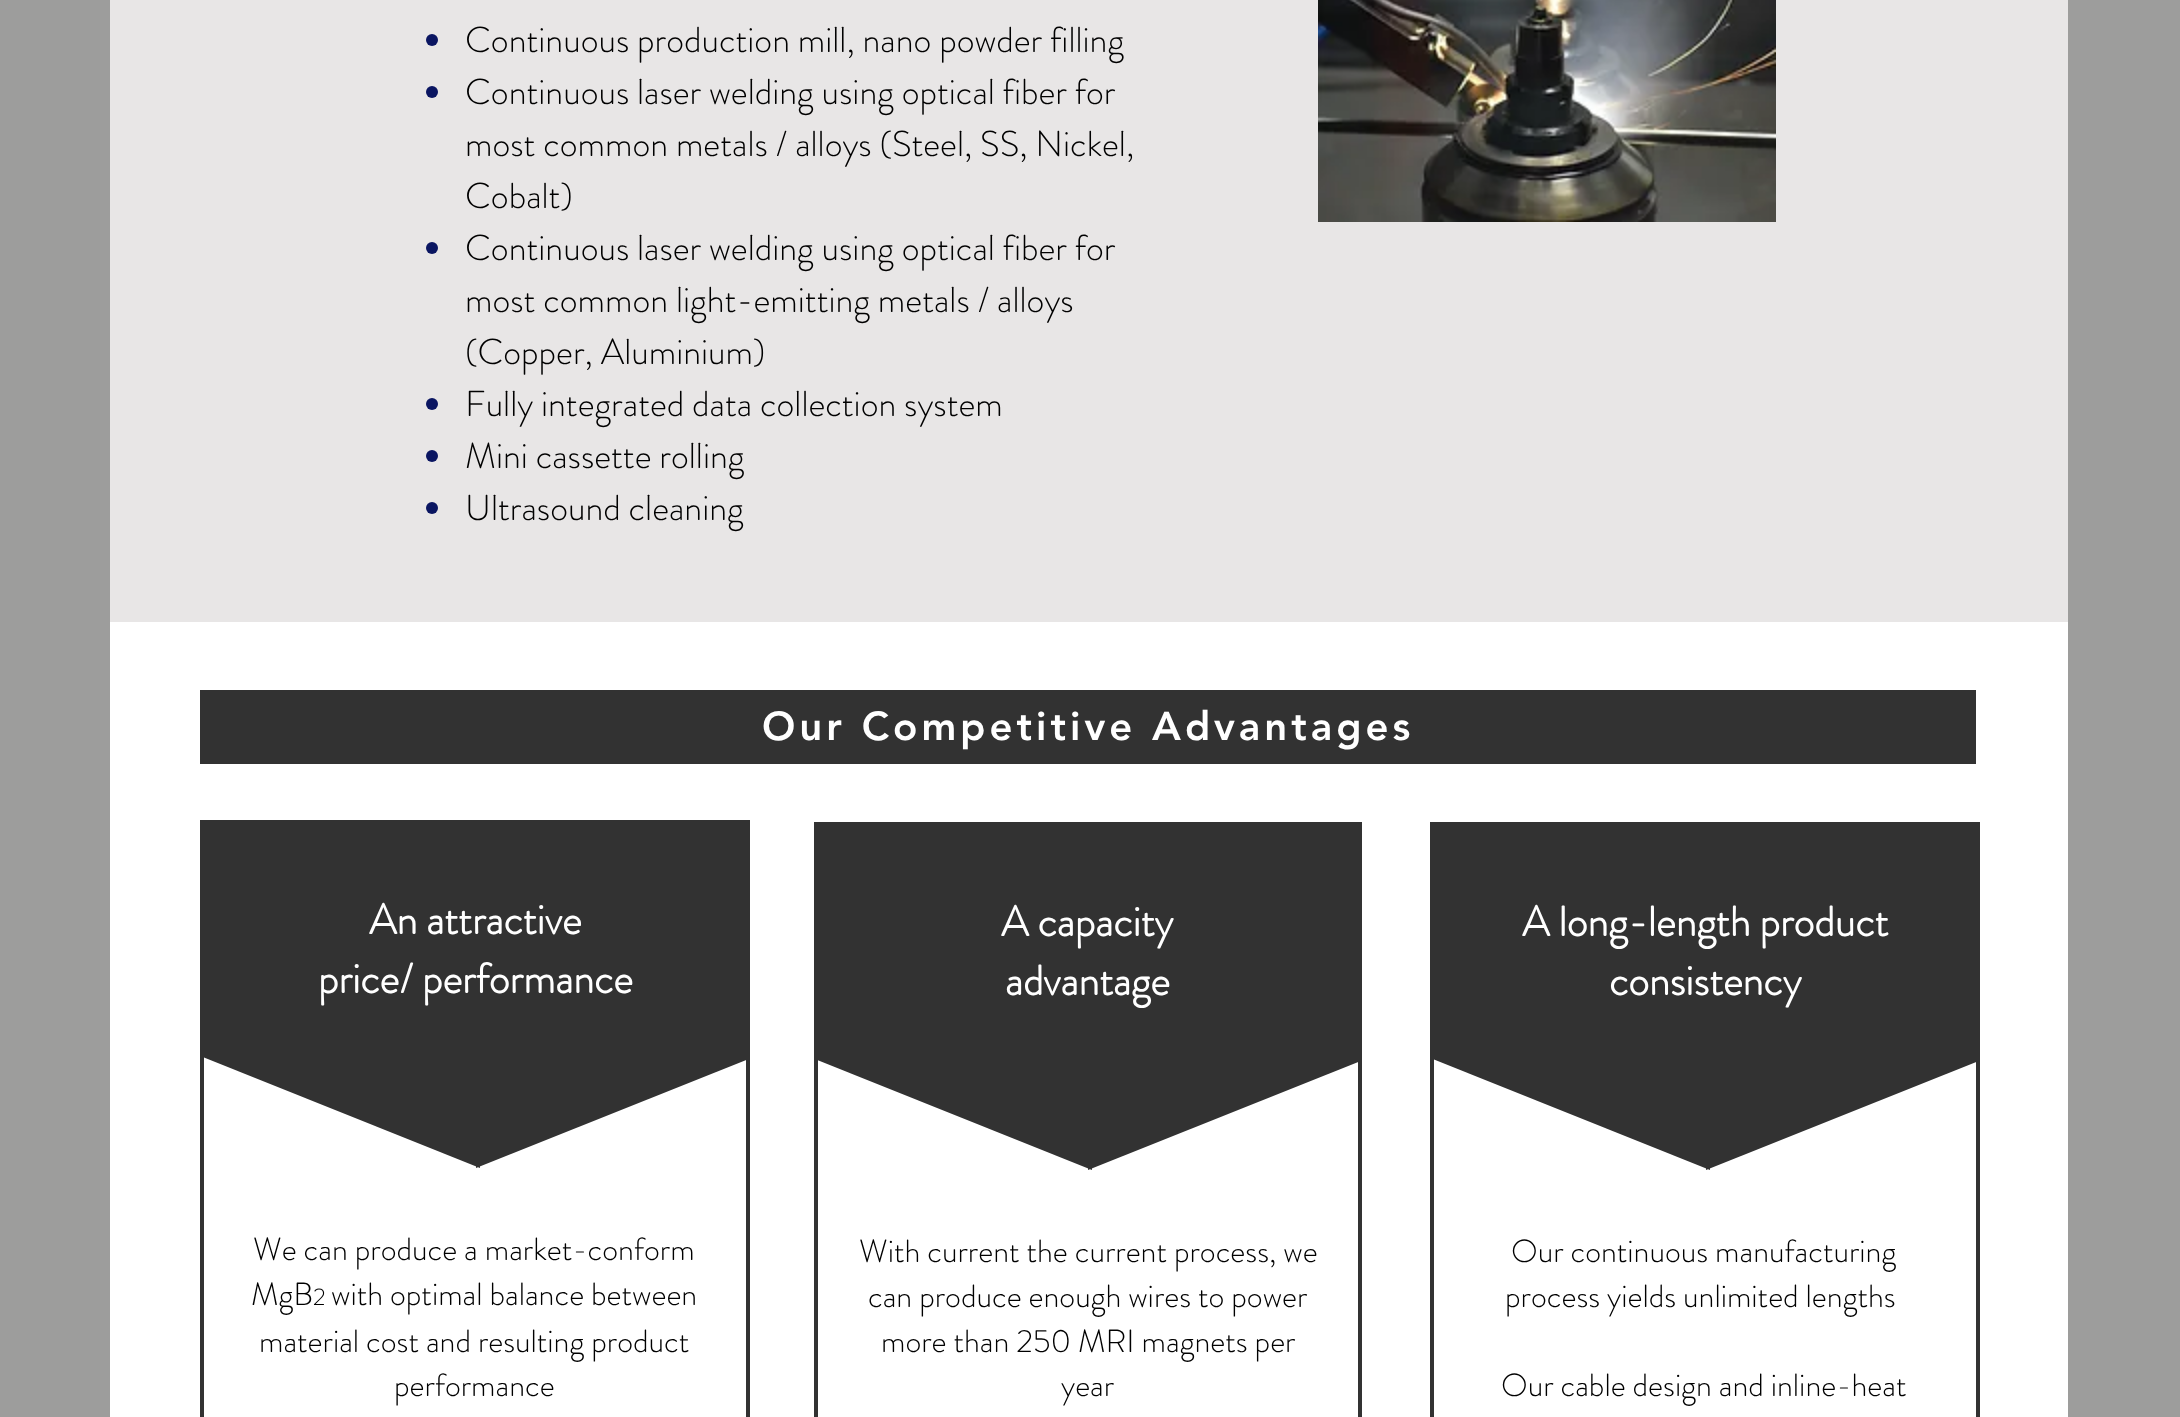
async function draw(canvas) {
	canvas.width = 2180;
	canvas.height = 1417;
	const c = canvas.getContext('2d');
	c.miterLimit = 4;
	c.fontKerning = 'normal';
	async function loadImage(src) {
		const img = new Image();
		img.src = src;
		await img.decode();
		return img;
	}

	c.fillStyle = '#9d9d9c';
	c.fillRect(0, 0, 2180, 1417);
	c.fillStyle = '#e8e6e6';
	c.fillRect(110, 0, 1958, 622);
	c.fillStyle = '#0a1561';
	c.beginPath();
	c.arc(432, 40, 6, 0, 2 * Math.PI);
	c.fill();
	c.font = '300 36px "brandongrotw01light"';
	c.fillStyle = '#000';
	c.fillText('Continuous production mill, nano powder filling', 465, 52);
	c.fillStyle = '#0a1561';
	c.beginPath();
	c.arc(432, 92, 6, 0, 2 * Math.PI);
	c.fill();
	c.fillStyle = '#000';
	for (const [text, x, y] of [
		['Continuous laser welding using optical fiber for', 465, 104],
		['most common metals / alloys (Steel, SS, Nickel,', 465, 156],
		['Cobalt)', 465, 208],
	]) {
		c.fillText(text, x, y);
	}
	c.fillStyle = '#0a1561';
	c.beginPath();
	c.arc(432, 248, 6, 0, 2 * Math.PI);
	c.fill();
	c.fillStyle = '#000';
	for (const [text, x, y] of [
		['Continuous laser welding using optical fiber for', 465, 260],
		['most common light-emitting metals / alloys', 465, 312],
		['(Copper, Aluminium)', 465, 364],
	]) {
		c.fillText(text, x, y);
	}
	c.fillStyle = '#0a1561';
	c.beginPath();
	c.arc(432, 404, 6, 0, 2 * Math.PI);
	c.fill();
	c.fillStyle = '#000';
	c.fillText('Fully integrated data collection system', 465, 416);
	c.fillStyle = '#0a1561';
	c.beginPath();
	c.arc(432, 456, 6, 0, 2 * Math.PI);
	c.fill();
	c.fillStyle = '#000';
	c.fillText('Mini cassette rolling', 465, 468);
	c.fillStyle = '#0a1561';
	c.beginPath();
	c.arc(432, 508, 6, 0, 2 * Math.PI);
	c.fill();
	c.fillStyle = '#000';
	c.fillText('Ultrasound cleaning', 465, 520);
	c.drawImage(await loadImage('img1.png'), 1318, 0, 458, 222);
	c.fillStyle = '#fff';
	c.fillRect(110, 622, 1958, 795);
	c.fillStyle = '#323232';
	c.fillRect(200, 690, 1776, 74);
	c.letterSpacing = '4px';
	c.font = '900 40px "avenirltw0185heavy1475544"';
	c.fillStyle = '#fff';
	c.fillText('Our Competitive Advantages', 762, 740);
	c.save();
	c.beginPath();
	c.rect(204, 820, 546, 350);
	c.clip();
	c.fillStyle = '#323232';
	c.beginPath();
	c.moveTo(476, 1168);
	c.lineTo(476, 768);
	c.lineTo(1476, 768);
	c.closePath();
	c.fill();
	c.beginPath();
	c.moveTo(480, 768);
	c.lineTo(480, 1168);
	c.lineTo(-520, 768);
	c.closePath();
	c.fill();
	c.restore();
	c.letterSpacing = '0px';
	c.font = 'bold 42px "brandongrotw01light"';
	c.fillText('An attractive', 369, 934);
	c.fillText('price/ performance', 318, 993);
	c.save();
	c.beginPath();
	c.rect(816, 822, 546, 350);
	c.clip();
	c.fillStyle = '#323232';
	c.beginPath();
	c.moveTo(1088, 1170);
	c.lineTo(1088, 770);
	c.lineTo(2088, 770);
	c.closePath();
	c.fill();
	c.beginPath();
	c.moveTo(1092, 770);
	c.lineTo(1092, 1170);
	c.lineTo(92, 770);
	c.closePath();
	c.fill();
	c.restore();
	c.fillText('A capacity', 1001, 936);
	c.fillText('advantage', 1005, 995);
	c.save();
	c.beginPath();
	c.rect(1434, 822, 546, 350);
	c.clip();
	c.fillStyle = '#323232';
	c.beginPath();
	c.moveTo(1706, 1170);
	c.lineTo(1706, 770);
	c.lineTo(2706, 770);
	c.closePath();
	c.fill();
	c.beginPath();
	c.moveTo(1710, 770);
	c.lineTo(1710, 1170);
	c.lineTo(710, 770);
	c.closePath();
	c.fill();
	c.restore();
	c.fillText('A long-length product', 1522, 936);
	c.fillText('consistency', 1609, 995);
	c.strokeStyle = '#323232';
	c.lineWidth = 4;
	c.strokeRect(202, 822, 546, 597);
	c.font = '300 32px "brandongrotw01light"';
	c.fillStyle = '#000';
	c.fillText('We can produce a market-conform', 253, 1260);
	c.fillText('MgB', 251, 1305);
	c.font = '300 24px "brandongrotw01light"';
	c.fillText('2', 313, 1305);
	c.font = '300 32px "brandongrotw01light"';
	for (const [text, x, y] of [
		['with optimal balance between', 331, 1305],
		['material cost and resulting product', 259, 1352],
		['performance', 394, 1396],
	]) {
		c.fillText(text, x, y);
	}
	c.strokeRect(816, 824, 544, 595);
	for (const [text, x, y] of [
		['With current the current process, we', 859, 1262],
		['can produce enough wires to power', 868, 1307],
		['more than 250 MRI magnets per', 881, 1352],
		['year', 1061, 1396],
	]) {
		c.fillText(text, x, y);
	}
	c.strokeRect(1432, 824, 546, 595);
	for (const [text, x, y] of [
		['Our continuous manufacturing', 1511, 1262],
		['process yields unlimited lengths', 1505, 1307],
		['Our cable design and inline-heat', 1501, 1396],
	]) {
		c.fillText(text, x, y);
	}
}

draw(document.querySelector('canvas'));
